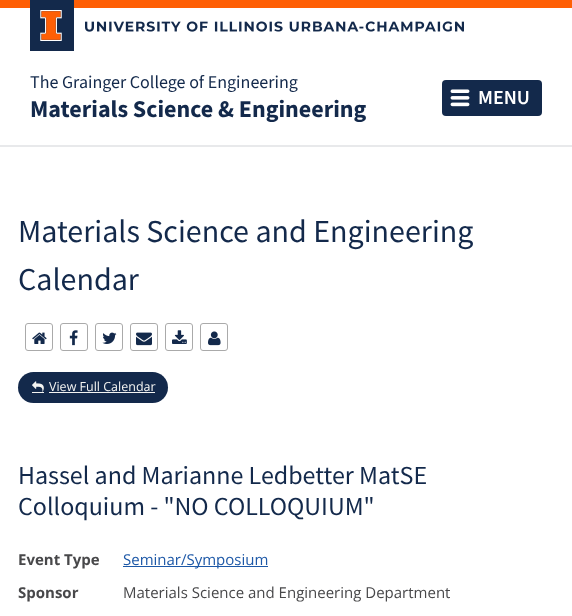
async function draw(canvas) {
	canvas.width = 572;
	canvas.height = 616;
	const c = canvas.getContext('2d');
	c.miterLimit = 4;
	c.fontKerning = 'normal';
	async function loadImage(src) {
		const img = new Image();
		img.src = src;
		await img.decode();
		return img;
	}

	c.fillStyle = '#fff';
	c.fillRect(0, 0, 572, 616);
	for (const [x, y, w, h, color] of [
		[0, 145, 572, 2, '#e8e9eb'],
		[0, 0, 572, 8, '#ff5f05'],
		[30, 0, 44, 51, '#13294b'],
	]) {
		c.fillStyle = color;
		c.fillRect(x, y, w, h);
	}
	c.drawImage(await loadImage('img1.png'), 40, 10, 22, 31);
	c.drawImage(await loadImage('img2.png'), 85, 21, 379, 11);
	c.font = '18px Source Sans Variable';
	c.fillText('The Grainger College of Engineering', 30, 88);
	c.font = 'bold 24px Source Sans Variable';
	c.fillText('Materials Science & Engineering', 30, 117);
	c.beginPath();
	c.roundRect(442, 80, 100, 36, 4);
	c.fill();
	c.drawImage(await loadImage('img3.png'), 450, 89, 20, 18);
	c.font = '600 20px Source Sans Variable';
	c.fillStyle = '#fff';
	c.fillText('MENU', 478, 104);
	c.font = '32px Source Sans Pro';
	c.fillStyle = '#13294b';
	c.fillText('Materials Science and Engineering', 18, 242);
	c.fillText('Calendar', 18, 290);
	c.beginPath();
	c.roundRect(25.5, 323.5, 27, 27, 2.5);
	c.strokeStyle = '#aaa';
	c.stroke();
	c.drawImage(await loadImage('img4.png'), 32, 332, 15, 12);
	c.beginPath();
	c.roundRect(60.5, 323.5, 27, 27, 2.5);
	c.stroke();
	c.drawImage(await loadImage('img5.png'), 69, 330, 9, 16);
	c.beginPath();
	c.roundRect(95.5, 323.5, 27, 27, 2.5);
	c.stroke();
	c.drawImage(await loadImage('img6.png'), 102, 332, 15, 12);
	c.beginPath();
	c.roundRect(130.5, 323.5, 27, 27, 2.5);
	c.stroke();
	c.drawImage(await loadImage('img7.png'), 136, 332, 16, 14);
	c.beginPath();
	c.roundRect(165.5, 323.5, 27, 27, 2.5);
	c.stroke();
	c.drawImage(await loadImage('img8.png'), 172, 330, 15, 14);
	c.beginPath();
	c.roundRect(200.5, 323.5, 27, 27, 2.5);
	c.stroke();
	c.drawImage(await loadImage('img9.png'), 208, 331, 13, 15);
	c.beginPath();
	c.roundRect(18, 372, 150, 31, 15.5);
	c.fill();
	c.drawImage(await loadImage('img10.png'), 32, 381, 12, 11);
	c.font = '12.5px Open Sans';
	c.fillStyle = '#f4f4f2';
	c.fillText('View Full Calendar', 49, 391);
	c.fillRect(49, 392, 106, 1);
	c.fillRect(32, 392, 12, 1);
	c.font = '26px Source Sans Pro';
	c.fillStyle = '#13294b';
	c.fillText('Hassel and Marianne Ledbetter MatSE', 18, 484);
	c.fillText('Colloquium - "NO COLLOQUIUM"', 18, 515);
	c.font = 'bold 15px Open Sans';
	c.fillStyle = '#48484a';
	c.fillText('Event Type', 18, 565);
	c.fillStyle = '#1d58a7';
	c.fillRect(123, 566, 145, 1);
	c.font = '15px Open Sans';
	c.fillText('Seminar/Symposium', 123, 565);
	c.font = 'bold 15px Open Sans';
	c.fillStyle = '#48484a';
	c.fillText('Sponsor', 18, 598);
	c.font = '15px Open Sans';
	c.fillText('Materials Science and Engineering Department', 123, 598);
}

draw(document.querySelector('canvas'));
